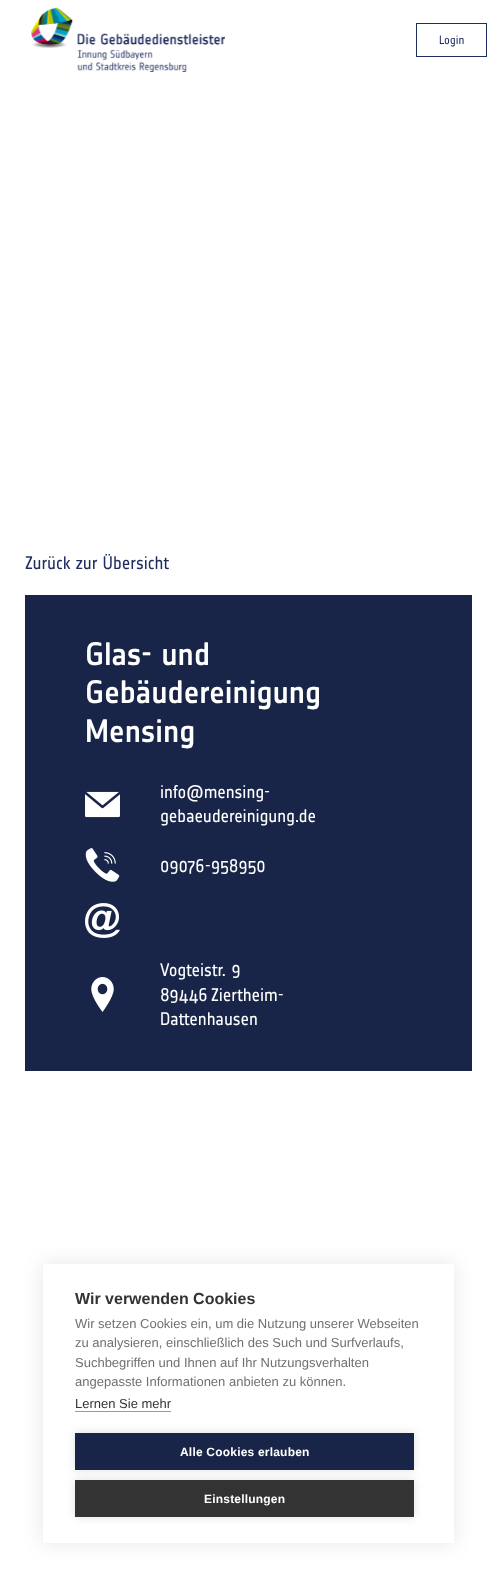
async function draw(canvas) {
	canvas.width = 497;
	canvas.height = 1593;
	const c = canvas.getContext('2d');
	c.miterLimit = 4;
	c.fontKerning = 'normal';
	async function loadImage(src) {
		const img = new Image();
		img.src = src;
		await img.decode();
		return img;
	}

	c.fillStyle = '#fff';
	c.fillRect(0, 0, 497, 1593);
	c.drawImage(await loadImage('img1.png'), 31, 8, 194, 64);
	c.strokeStyle = '#1f2c5e';
	c.strokeRect(416.5, 23.5, 70, 33);
	c.font = '12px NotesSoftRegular';
	c.fillStyle = '#1f2c5e';
	c.fillText('Login', 439, 44);
	c.font = '18px NotesSoftRegular';
	c.fillText('Zurück zur Übersicht', 25, 569);
	c.fillStyle = '#182548';
	c.fillRect(25, 595, 447, 476);
	c.font = '500 32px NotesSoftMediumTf';
	c.fillStyle = '#fff';
	for (const [text, x, y] of [
		['Glas- und', 85, 665],
		['Gebäudereinigung', 85, 703],
		['Mensing', 85, 742],
	]) {
		c.fillText(text, x, y);
	}
	c.drawImage(await loadImage('img2.png'), 85, 791, 35, 27);
	c.font = '18px NotesSoftRegular';
	c.fillText('info@mensing-', 160, 798);
	c.fillText('gebaeudereinigung.de', 160, 822);
	c.drawImage(await loadImage('img3.png'), 85, 848, 35, 34);
	c.fillText('09076-958950', 160, 872);
	c.drawImage(await loadImage('img4.png'), 85, 903, 35, 35);
	c.drawImage(await loadImage('img5.png'), 91, 977, 23, 35);
	for (const [text, x, y] of [
		['Vogteistr. 9', 160, 976],
		['89446', 160, 1001],
		['Ziertheim-', 211, 1001],
		['Dattenhausen', 160, 1025],
	]) {
		c.fillText(text, x, y);
	}
	c.save();
	c.beginPath();
	c.moveTo(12, 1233);
	c.lineTo(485, 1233);
	c.lineTo(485, 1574);
	c.lineTo(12, 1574);
	c.closePath();
	c.moveTo(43, 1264);
	c.lineTo(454, 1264);
	c.lineTo(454, 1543);
	c.lineTo(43, 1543);
	c.closePath();
	c.clip('evenodd');
	c.fillStyle = '#0000001a';
	c.filter = 'blur(10px)';
	c.beginPath();
	c.rect(43, 1264, 411, 279);
	c.fill();
	c.filter = 'none';
	c.restore();
	c.font = 'bold 16px Liberation Sans';
	c.fillStyle = '#333';
	c.fillText('Wir verwenden Cookies', 75, 1304);
	c.font = '13px Liberation Sans';
	c.fillStyle = '#707070';
	for (const [text, x, y] of [
		['Wir setzen Cookies ein, um die Nutzung unserer Webseiten', 75, 1328],
		['zu analysieren, einschließlich des Such und Surfverlaufs,', 75, 1347],
		['Suchbegriffen und Ihnen auf Ihr Nutzungsverhalten', 75, 1367],
		['angepasste Informationen anbieten zu können.', 75, 1386],
	]) {
		c.fillText(text, x, y);
	}
	c.fillStyle = '#333';
	c.fillText('Lernen Sie mehr', 75, 1408);
	c.fillStyle = '#999';
	c.fillRect(75, 1411, 96, 1);
	c.fillStyle = '#0000001f';
	c.filter = 'blur(5px)';
	c.beginPath();
	c.rect(75, 1433, 339, 37);
	c.fill();
	c.filter = 'none';
	c.fillStyle = '#182548';
	c.fillRect(75, 1433, 339, 37);
	c.letterSpacing = '0.2px';
	c.font = 'bold 12px Liberation Sans';
	c.fillStyle = '#fff';
	c.fillText('Alle Cookies erlauben', 180, 1456);
	c.fillStyle = '#0000001f';
	c.filter = 'blur(5px)';
	c.beginPath();
	c.rect(75, 1480, 339, 37);
	c.fill();
	c.filter = 'none';
	c.fillStyle = '#333';
	c.fillRect(75, 1480, 339, 37);
	c.fillStyle = '#fff';
	c.fillText('Einstellungen', 204, 1503);
}

draw(document.querySelector('canvas'));
